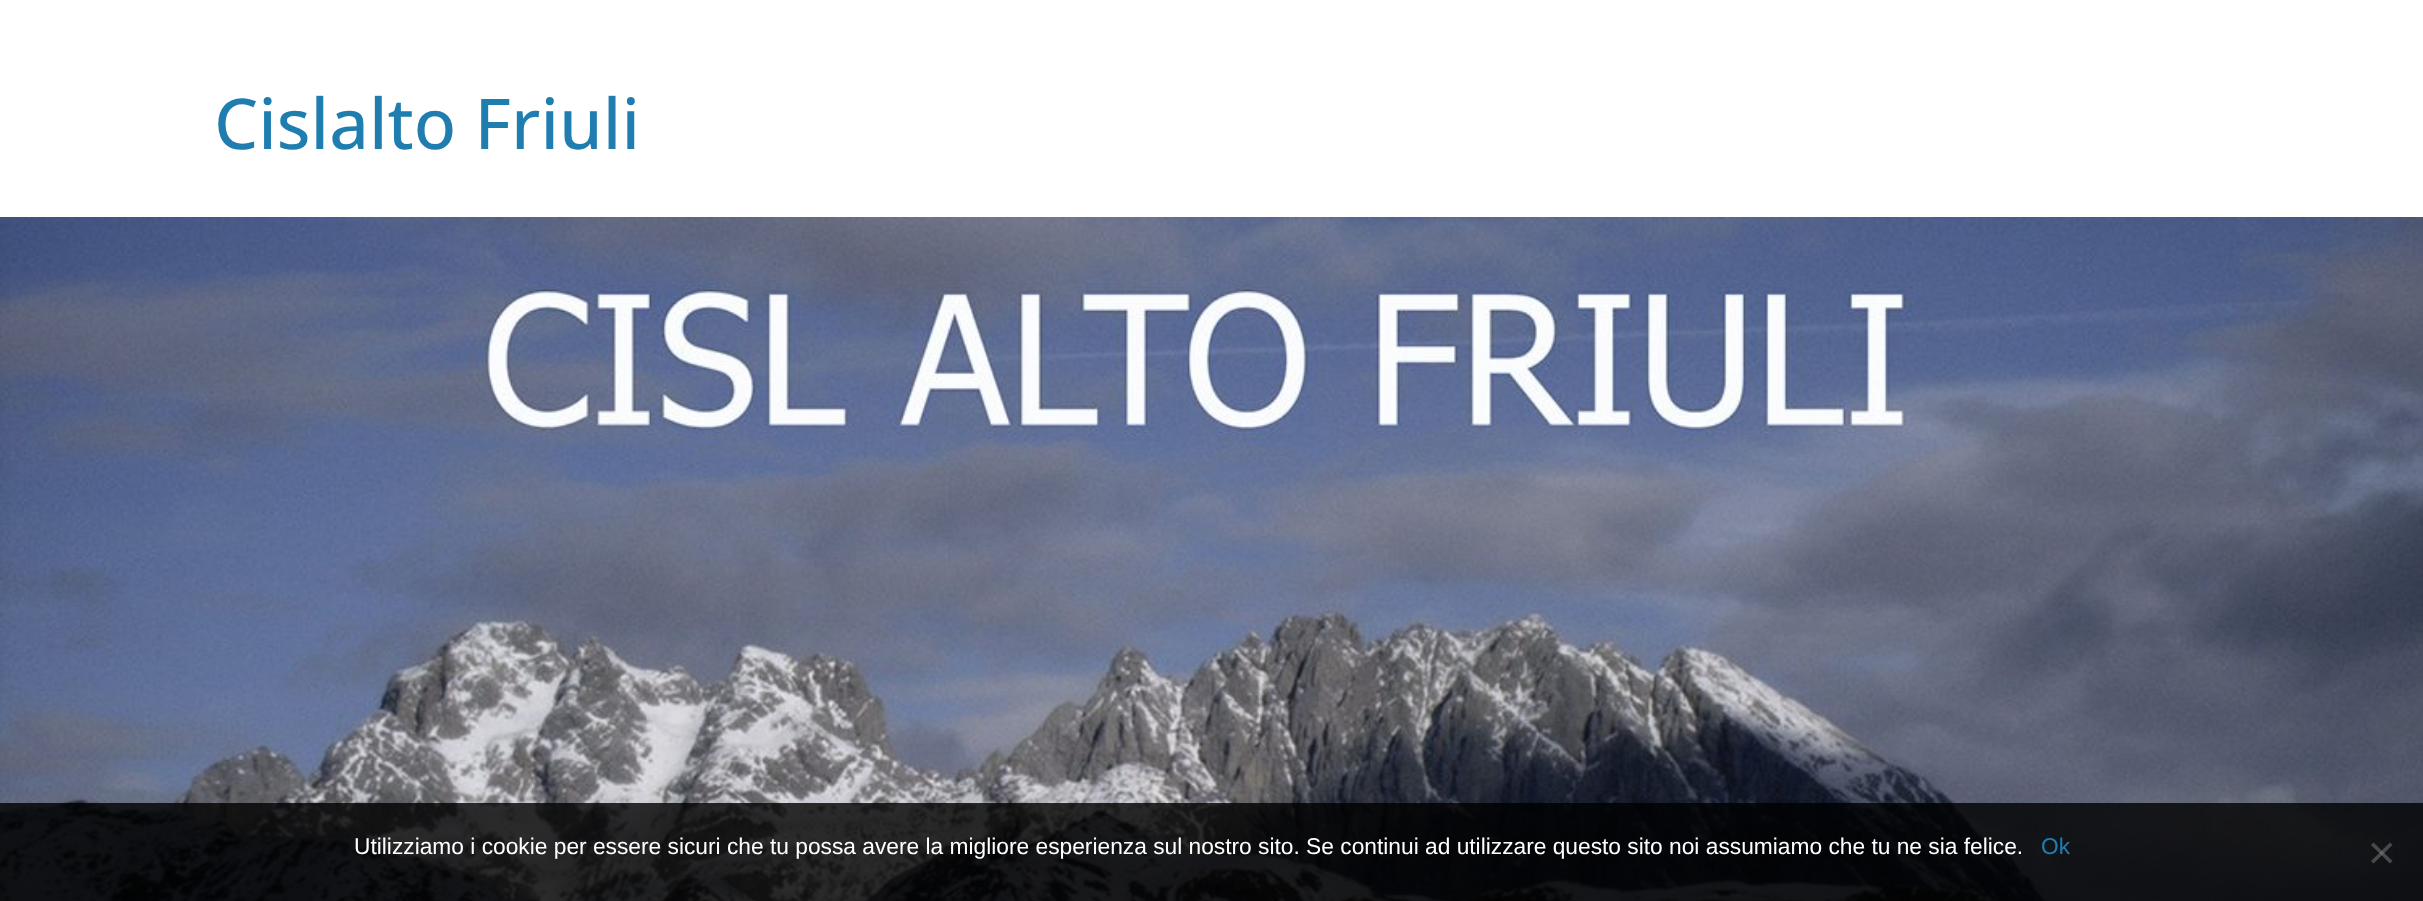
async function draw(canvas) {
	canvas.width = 2423;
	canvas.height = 901;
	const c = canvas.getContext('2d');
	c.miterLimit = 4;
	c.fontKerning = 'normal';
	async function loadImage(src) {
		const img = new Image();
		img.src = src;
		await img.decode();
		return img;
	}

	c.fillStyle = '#fff';
	c.fillRect(0, 0, 2423, 901);
	c.font = '500 70px Open Sans';
	c.fillStyle = '#207daf';
	c.fillText('Cislalto Friuli', 214, 149);
	c.drawImage(await loadImage('img1.png'), 0, 217, 2423, 684);
	c.fillStyle = '#000000cc';
	c.fillRect(0, 803, 2423, 98);
	c.font = '22.75px Liberation Sans';
	c.fillStyle = '#fff';
	c.fillText('Utilizziamo i cookie per essere sicuri che tu possa avere la migliore esperienza sul nostro sito. Se continui ad utilizzare questo sito noi assumiamo che tu ne sia felice.', 354, 854);
	c.fillStyle = '#207daf';
	c.fillText('Ok', 2041, 854);
	c.fillStyle = '#494a4b';
	c.beginPath();
	c.moveTo(2390, 842.5);
	c.lineTo(2392.5, 845);
	c.lineTo(2373.5, 863.5);
	c.lineTo(2371, 861);
	c.closePath();
	c.fill();
	c.fillStyle = '#80808080';
	c.beginPath();
	c.moveTo(2371, 845);
	c.lineTo(2373.5, 842.5);
	c.lineTo(2392.5, 861);
	c.lineTo(2390, 863.5);
	c.closePath();
	c.fill();
}

draw(document.querySelector('canvas'));
